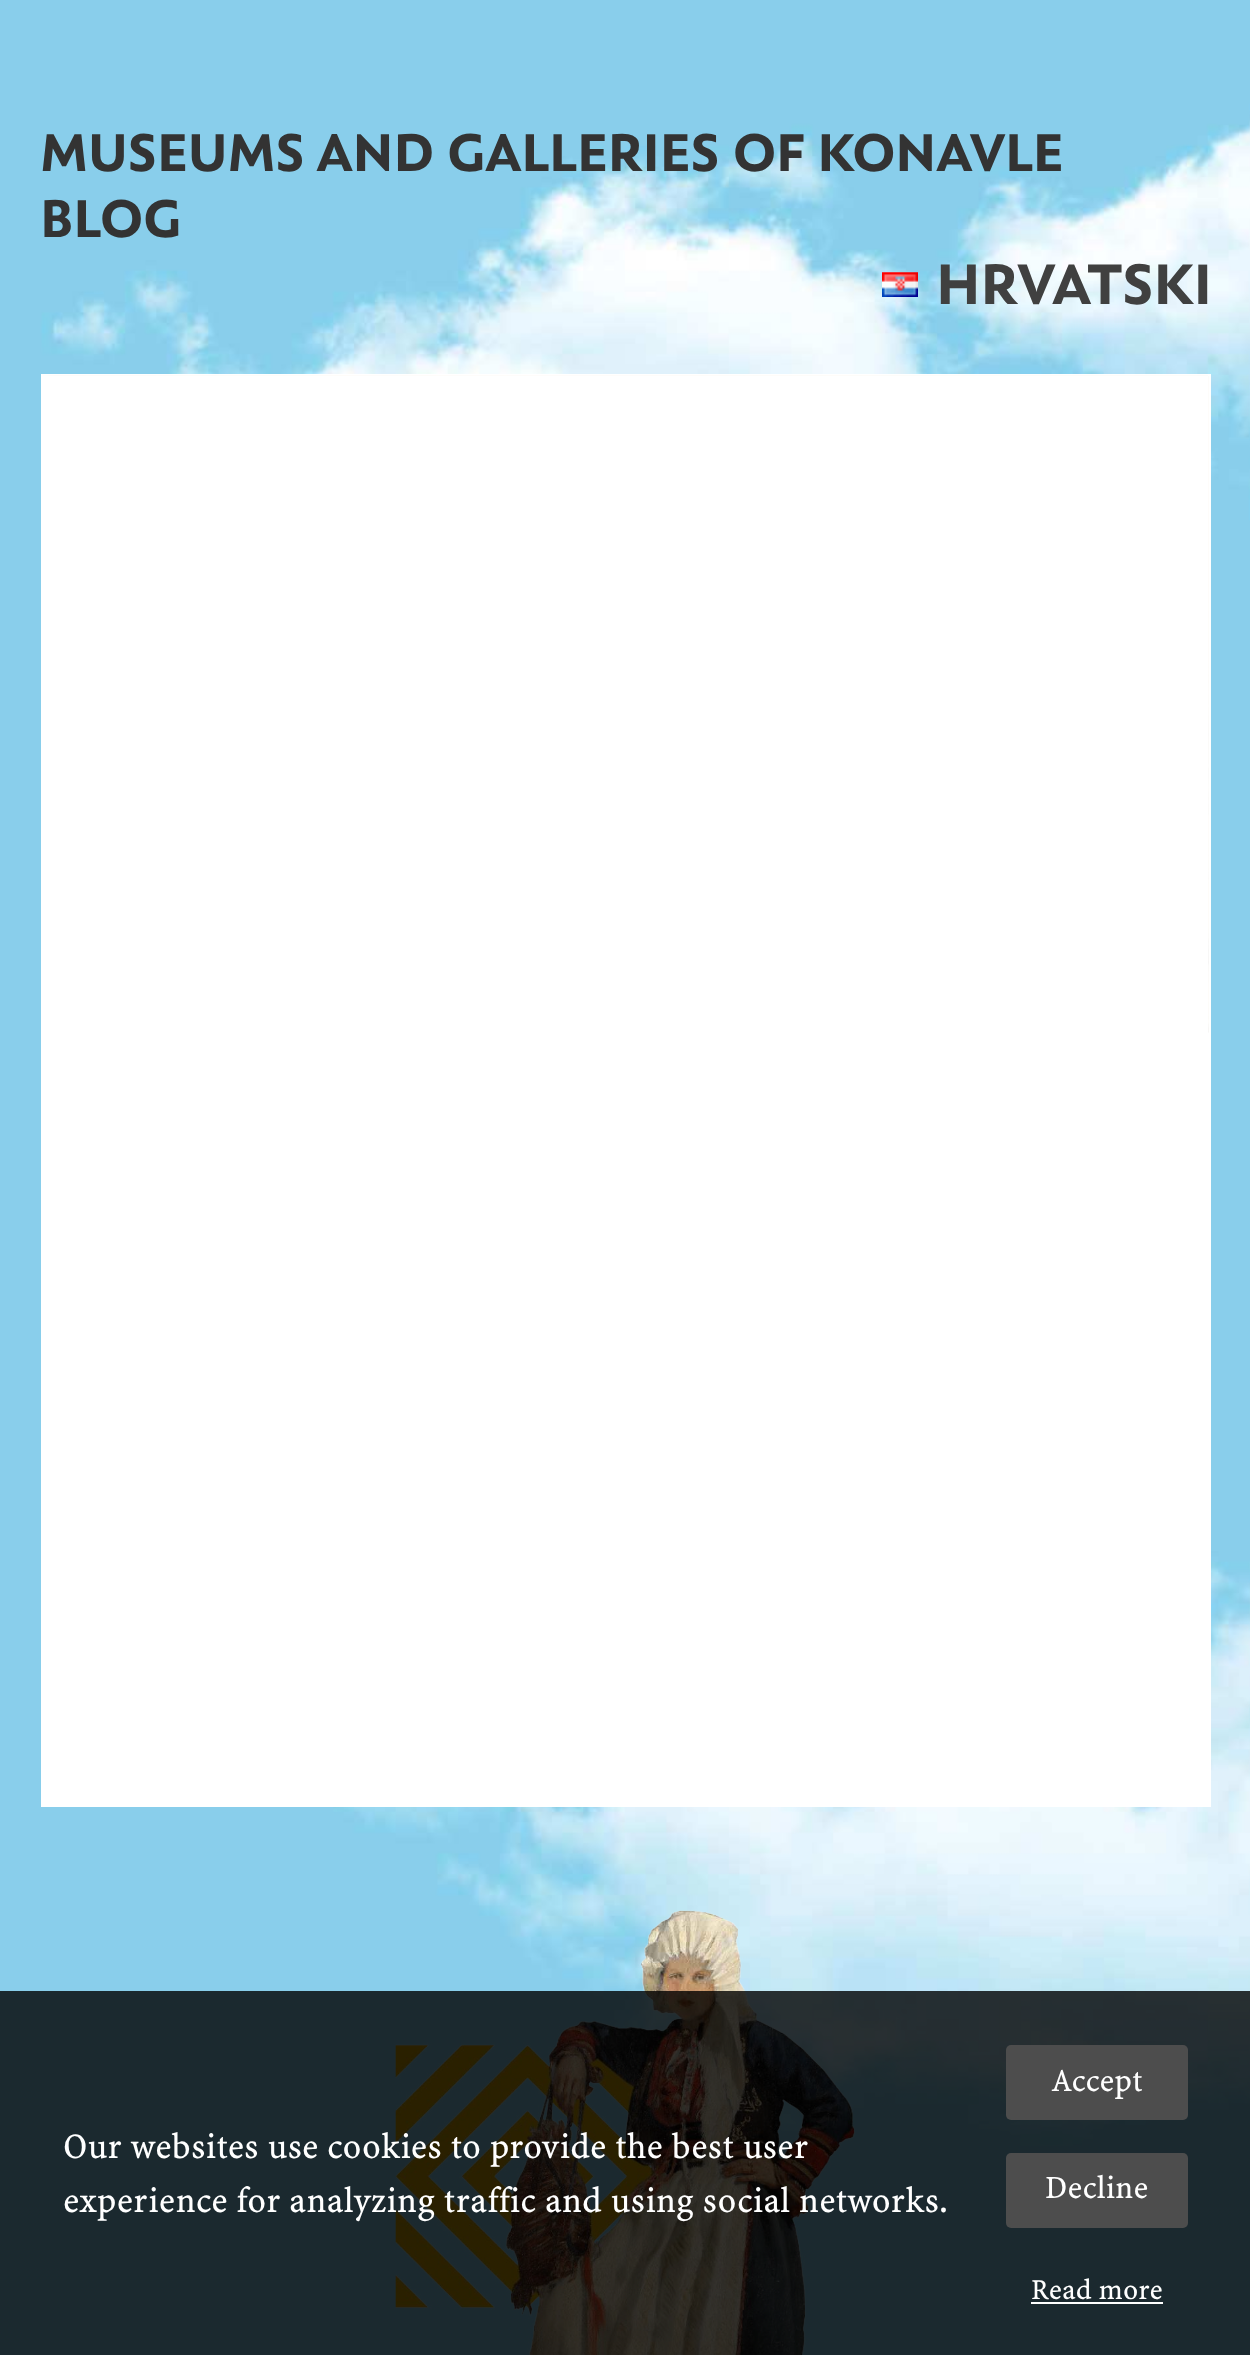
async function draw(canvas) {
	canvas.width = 1250;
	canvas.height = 2355;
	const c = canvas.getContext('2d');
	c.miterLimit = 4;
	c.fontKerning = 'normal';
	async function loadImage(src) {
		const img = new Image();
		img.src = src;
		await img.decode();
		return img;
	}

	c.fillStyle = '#fff';
	c.fillRect(0, 0, 1250, 2355);
	c.drawImage(await loadImage('img1.png'), 0, 0, 1250, 2355);
	c.font = 'bold 55.4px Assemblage';
	c.fillStyle = '#333';
	c.fillText('MUSEUMS AND GALLERIES OF KONAVLE', 40, 171);
	c.fillText('BLOG', 40, 237);
	c.drawImage(await loadImage('img2.png'), 882, 272, 36, 25);
	c.font = 'bold 59.5px Assemblage';
	c.fillStyle = '#404040';
	c.fillText('HRVATSKI', 936, 304);
	c.fillStyle = '#fff';
	c.fillRect(41, 374, 1170, 1433);
	c.drawImage(await loadImage('img3.png'), 43, 375, 1166, 658);
	c.fillRect(43, 376, 1165, 657);
	c.drawImage(await loadImage('img4.png'), 395, 1910, 460, 445);
	c.fillStyle = '#000000cc';
	c.fillRect(0, 1991, 1250, 364);
	c.font = '36px Minion';
	c.fillStyle = '#fff';
	c.fillText('Our websites use cookies to provide the best user', 63, 2158);
	c.fillText('experience for analyzing traffic and using social networks.', 63, 2212);
	c.fillStyle = '#4d4d4d';
	c.beginPath();
	c.roundRect(1006, 2045, 182, 75, 5);
	c.fill();
	c.font = '32.5px Minion';
	c.fillStyle = '#fff';
	c.fillText('Accept', 1051, 2091);
	c.fillStyle = '#4d4d4d';
	c.beginPath();
	c.roundRect(1006, 2153, 182, 75, 5);
	c.fill();
	c.fillStyle = '#fff';
	c.fillText('Decline', 1045, 2198);
	c.font = '29px Minion';
	c.fillText('Read more', 1031, 2299);
	c.fillRect(1031, 2302, 132, 2);
}

draw(document.querySelector('canvas'));
